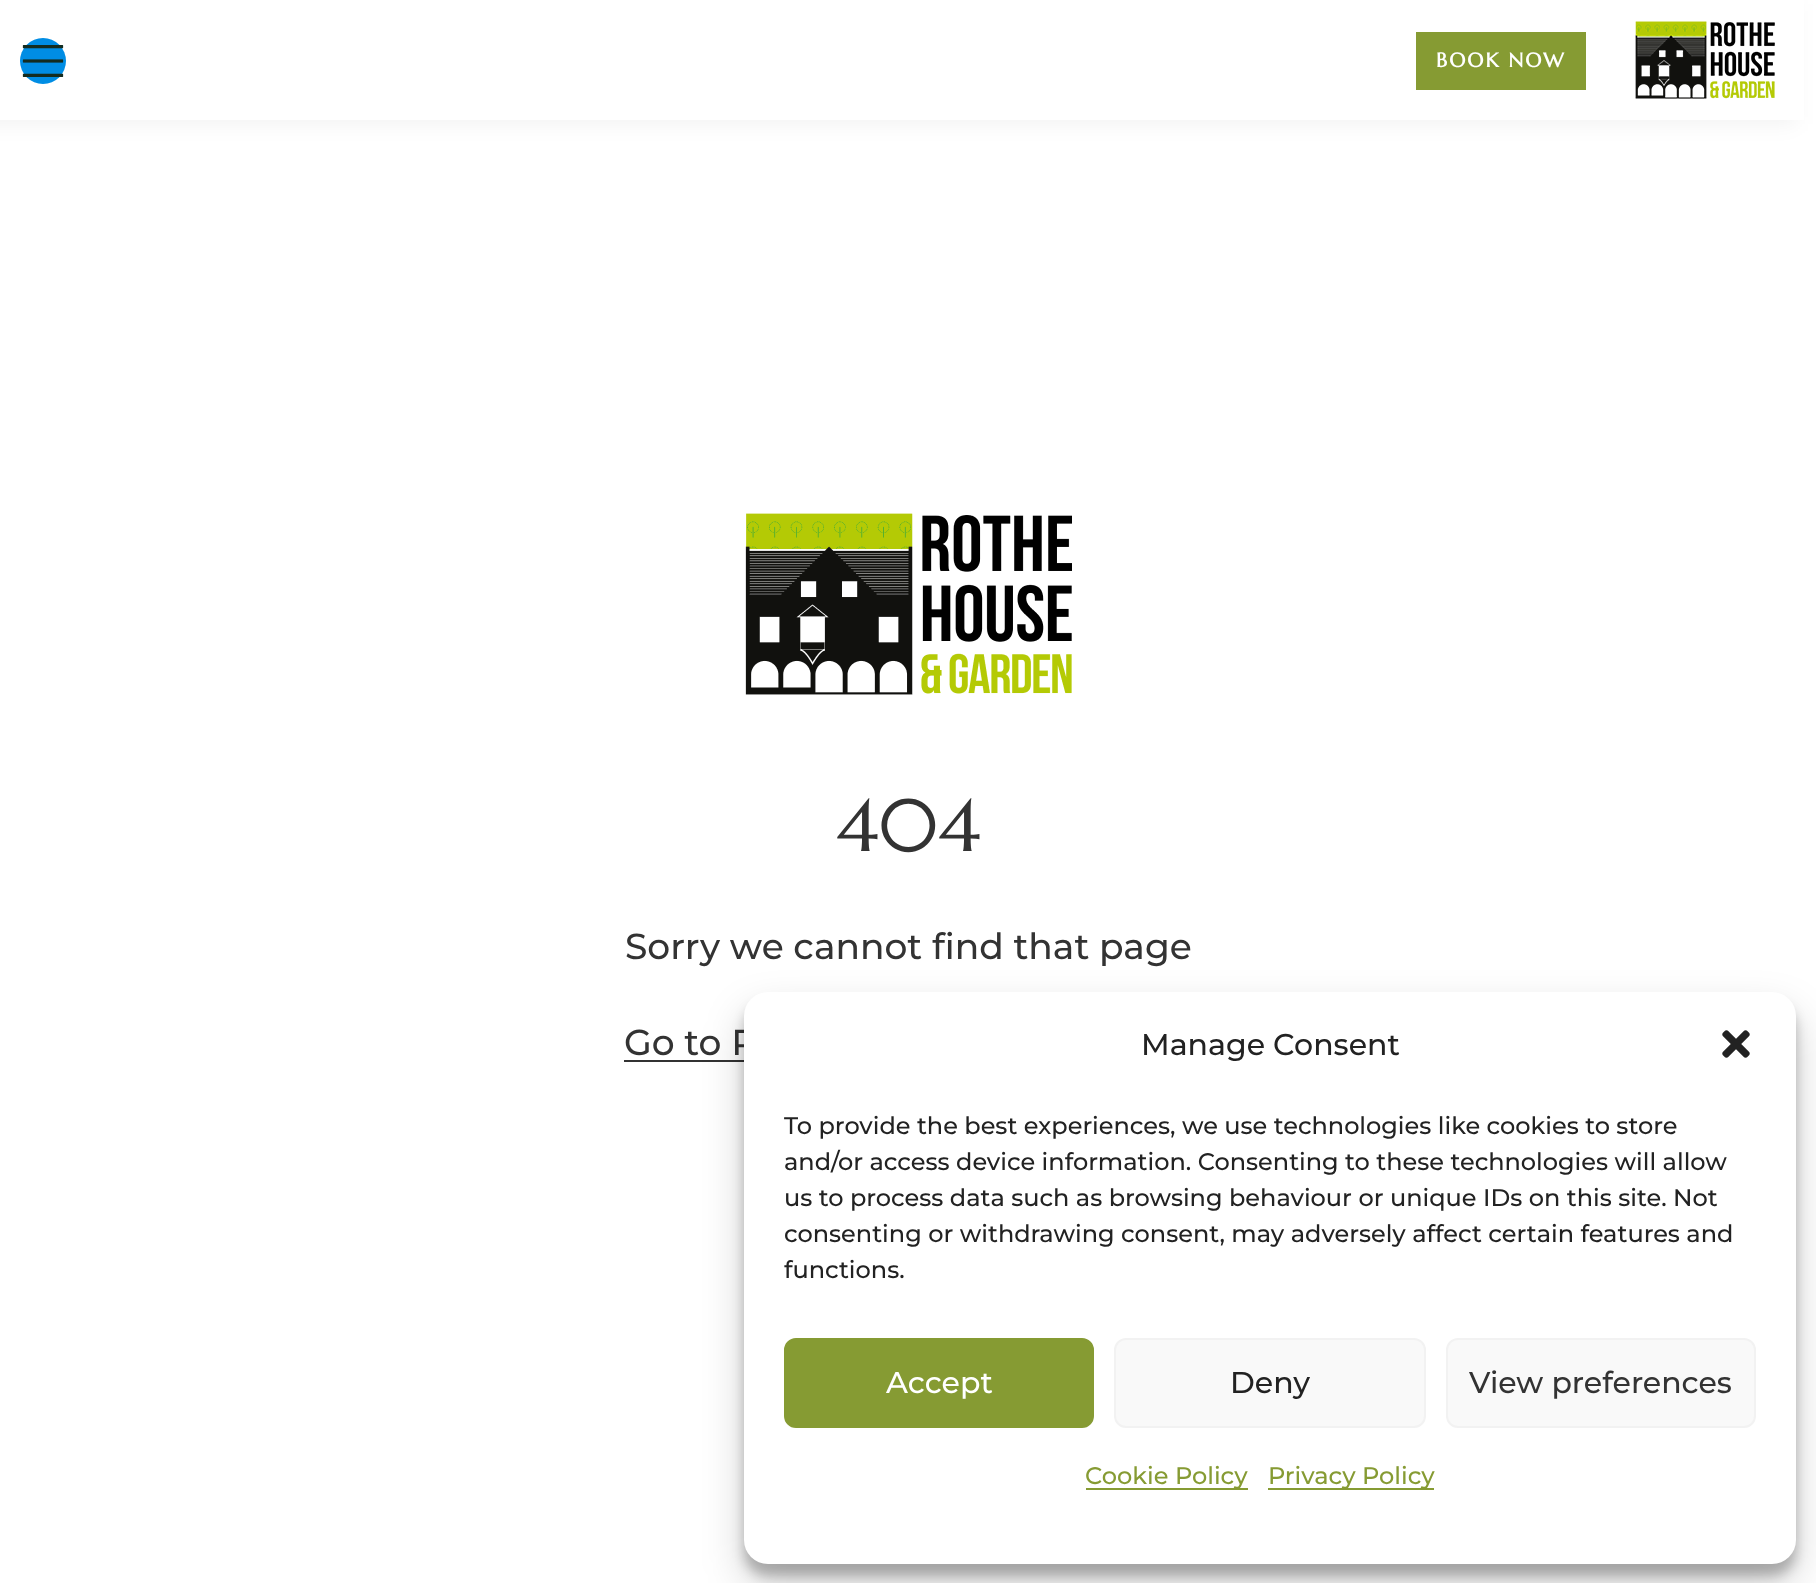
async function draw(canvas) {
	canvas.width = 1816;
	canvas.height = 1583;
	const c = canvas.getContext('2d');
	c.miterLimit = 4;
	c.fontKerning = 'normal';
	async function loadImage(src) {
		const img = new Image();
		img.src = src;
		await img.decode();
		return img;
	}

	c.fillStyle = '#fff';
	c.fillRect(0, 0, 1816, 1583);
	c.fillStyle = '#0000000d';
	c.filter = 'blur(10px)';
	c.beginPath();
	c.rect(-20, 4, 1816, 120);
	c.fill();
	c.filter = 'none';
	c.fillStyle = '#fff';
	c.fillRect(0, 0, 1804, 120);
	c.fillStyle = '#008de4';
	c.beginPath();
	c.arc(43, 61, 23, 0, 2 * Math.PI);
	c.fill();
	c.drawImage(await loadImage('img1.png'), 22, 45, 42, 32);
	c.fillStyle = '#869b33';
	c.fillRect(1416, 32, 170, 58);
	c.letterSpacing = '2px';
	c.font = 'bold 20px Marcellus';
	c.fillStyle = '#fff';
	c.fillText('BOOK NOW', 1436, 67);
	c.drawImage(await loadImage('img2.png'), 1635, 21, 140, 78);
	c.drawImage(await loadImage('img3.png'), 745, 513, 327, 182);
	c.letterSpacing = '0px';
	c.font = '74px Marcellus';
	c.fillStyle = '#333';
	c.fillText('404', 836, 851);
	c.font = '500 36px Montserrat';
	c.fillText('Sorry we cannot find that page', 625, 959);
	c.fillText('Go to R', 624, 1055);
	c.fillRect(624, 1060, 120, 2);
	c.fillStyle = '#0000003b';
	c.filter = 'blur(6px)';
	c.beginPath();
	c.roundRect(744, 1004, 1052, 572, 24);
	c.fill();
	c.filter = 'none';
	c.fillStyle = '#00000030';
	c.filter = 'blur(20px)';
	c.beginPath();
	c.roundRect(744, 1012, 1052, 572, 24);
	c.fill();
	c.filter = 'none';
	c.fillStyle = '#fff';
	c.beginPath();
	c.roundRect(744, 992, 1052, 572, 24);
	c.fill();
	c.font = '500 30px Montserrat';
	c.fillStyle = '#222';
	c.fillText('Manage Consent', 1141, 1055);
	c.drawImage(await loadImage('img4.png'), 1722, 1030, 28, 28);
	c.font = '500 24px Montserrat';
	for (const [text, x, y] of [
		['To provide the best experiences, we use technologies like cookies to store', 784, 1134],
		['and/or access device information. Consenting to these technologies will allow', 784, 1170],
		['us to process data such as browsing behaviour or unique IDs on this site. Not', 784, 1206],
		['consenting or withdrawing consent, may adversely affect certain features and', 784, 1242],
		['functions.', 784, 1278],
	]) {
		c.fillText(text, x, y);
	}
	c.fillStyle = '#869b33';
	c.beginPath();
	c.roundRect(785, 1339, 308, 88, 11);
	c.fill();
	c.strokeStyle = '#869b33';
	c.lineWidth = 2;
	c.stroke();
	c.font = '500 30px Montserrat';
	c.fillStyle = '#fff';
	c.fillText('Accept', 886, 1393);
	c.fillStyle = '#f9f9f9';
	c.beginPath();
	c.roundRect(1115, 1339, 310, 88, 11);
	c.fill();
	c.strokeStyle = '#f2f2f2';
	c.stroke();
	c.fillStyle = '#222';
	c.fillText('Deny', 1230, 1393);
	c.fillStyle = '#f9f9f9';
	c.beginPath();
	c.roundRect(1447, 1339, 308, 88, 11);
	c.fill();
	c.stroke();
	c.fillStyle = '#333';
	c.fillText('View preferences', 1469, 1393);
	c.fillStyle = '#869b33';
	c.fillRect(1086, 1488, 162, 2);
	c.font = '500 24px Montserrat';
	c.fillText('Cookie Policy', 1085, 1484);
	c.fillRect(1268, 1488, 166, 2);
	c.fillText('Privacy Policy', 1268, 1484);
}

draw(document.querySelector('canvas'));
